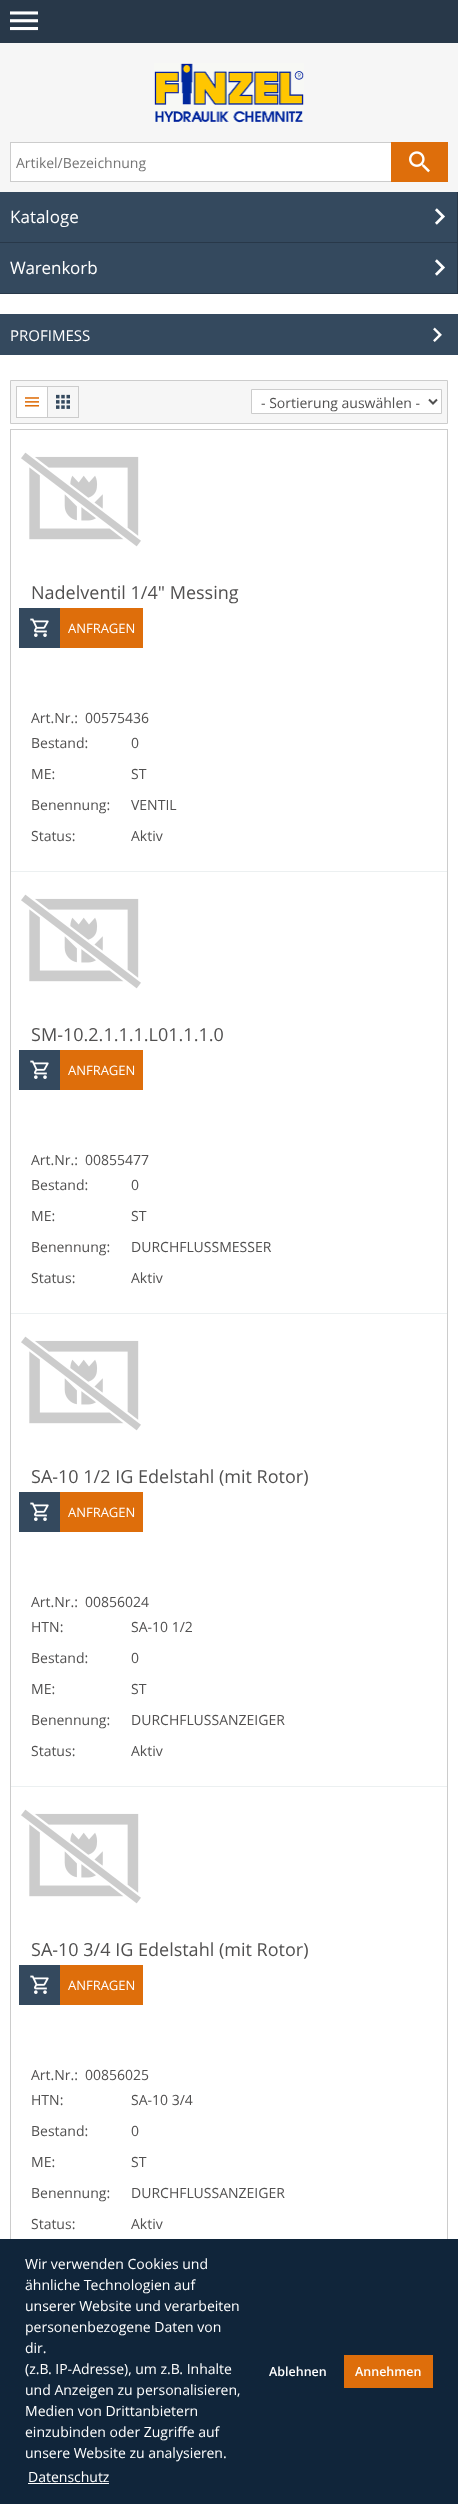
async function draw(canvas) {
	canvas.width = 458;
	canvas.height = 2504;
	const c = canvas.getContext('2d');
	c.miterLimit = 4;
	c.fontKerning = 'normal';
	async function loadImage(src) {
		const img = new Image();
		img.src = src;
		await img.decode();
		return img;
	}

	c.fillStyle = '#f6f6f6';
	c.fillRect(0, 0, 458, 2504);
	c.fillStyle = '#283849';
	c.fillRect(0, 0, 458, 43);
	c.drawImage(await loadImage('img1.png'), 10, 11, 28, 20);
	c.drawImage(await loadImage('img2.png'), 154, 63, 150, 60);
	for (const [x, y, w, h, color] of [
		[11, 143, 380, 38, '#fff'],
		[10, 142, 381, 1, '#ccc'],
		[10, 181, 381, 1, '#ccc'],
		[10, 142, 1, 40, '#ccc'],
	]) {
		c.fillStyle = color;
		c.fillRect(x, y, w, h);
	}
	c.font = '14px Open Sans';
	c.fillStyle = '#757575';
	c.fillText('Artikel/Bezeichnung', 16, 168);
	c.fillStyle = '#de6e0b';
	c.fillRect(391, 142, 57, 40);
	c.drawImage(await loadImage('img3.png'), 409, 151, 21, 22);
	for (const [x, y, w, h, color] of [
		[0, 192, 457, 101, '#34495e'],
		[457, 192, 1, 102, '#283849'],
		[0, 242, 458, 1, '#283849'],
	]) {
		c.fillStyle = color;
		c.fillRect(x, y, w, h);
	}
	c.font = '17px Open Sans';
	c.fillStyle = '#fff';
	c.fillText('Kataloge', 10, 223);
	c.drawImage(await loadImage('img4.png'), 435, 208, 10, 17);
	c.fillStyle = '#283849';
	c.fillRect(0, 293, 458, 1);
	c.fillStyle = '#fff';
	c.fillText('Warenkorb', 10, 274);
	c.drawImage(await loadImage('img4.png'), 435, 259, 10, 17);
	c.fillRect(0, 294, 458, 1945);
	c.fillStyle = '#34495e';
	c.fillRect(0, 314, 458, 41);
	c.font = '15px Open Sans';
	c.fillStyle = '#fff';
	c.fillText('PROFIMESS', 10, 341);
	c.drawImage(await loadImage('img5.png'), 433, 327, 9, 15);
	c.fillStyle = '#f6f6f6';
	c.beginPath();
	c.rect(10.5, 380.5, 437, 43);
	c.fill();
	c.strokeStyle = '#ccc';
	c.stroke();
	for (const [x, y, w, h, color] of [
		[17, 387, 30, 30, '#fff'],
		[16, 386, 31, 1, '#ccc'],
		[16, 417, 31, 1, '#ccc'],
		[16, 386, 1, 32, '#ccc'],
	]) {
		c.fillStyle = color;
		c.fillRect(x, y, w, h);
	}
	c.drawImage(await loadImage('img6.png'), 25, 397, 14, 10);
	c.strokeRect(47.5, 386.5, 31, 31);
	c.drawImage(await loadImage('img7.png'), 56, 394, 14, 15);
	c.fillStyle = '#fff';
	c.beginPath();
	c.rect(251.5, 389.5, 190, 24);
	c.fill();
	c.stroke();
	c.beginPath();
	c.moveTo(429, 399.5);
	c.lineTo(433, 403.5);
	c.lineTo(437, 399.5);
	c.strokeStyle = '#515050';
	c.lineWidth = 2;
	c.stroke();
	c.font = '14px Open Sans';
	c.fillStyle = '#515050';
	c.fillText('- Sortierung auswählen -', 261, 408);
	c.strokeStyle = '#ccc';
	c.lineWidth = 1;
	c.strokeRect(10.5, 429.5, 437, 1831);
	c.fillStyle = '#ecf0f1';
	c.fillRect(11, 871, 436, 1);
	c.drawImage(await loadImage('img8.png'), 21, 452, 120, 95);
	c.font = '18px Open Sans';
	c.fillStyle = '#515050';
	c.fillText('Nadelventil 1/4" Messing', 31, 599);
	c.fillStyle = '#34495e';
	c.fillRect(19, 608, 41, 40);
	c.drawImage(await loadImage('img9.png'), 30, 618, 19, 19);
	c.fillStyle = '#de6e0b';
	c.fillRect(60, 608, 83, 40);
	c.font = '13px Open Sans';
	c.fillStyle = '#fff';
	c.fillText('ANFRAGEN', 68, 633);
	c.font = '14px Open Sans';
	c.fillStyle = '#515050';
	for (const [text, x, y] of [
		['Art.Nr.:', 31, 723],
		['00575436', 85, 723],
		['Bestand:', 31, 748],
		['0', 131, 748],
		['ME:', 31, 779],
		['ST', 131, 779],
		['Benennung:', 31, 810],
		['VENTIL', 131, 810],
		['Status:', 31, 841],
		['Aktiv', 131, 841],
	]) {
		c.fillText(text, x, y);
	}
	c.fillStyle = '#ecf0f1';
	c.fillRect(11, 1313, 436, 1);
	c.drawImage(await loadImage('img8.png'), 21, 894, 120, 95);
	c.font = '18px Open Sans';
	c.fillStyle = '#515050';
	c.fillText('SM-10.2.1.1.1.L01.1.1.0', 31, 1041);
	c.fillStyle = '#34495e';
	c.fillRect(19, 1050, 41, 40);
	c.drawImage(await loadImage('img9.png'), 30, 1060, 19, 19);
	c.fillStyle = '#de6e0b';
	c.fillRect(60, 1050, 83, 40);
	c.font = '13px Open Sans';
	c.fillStyle = '#fff';
	c.fillText('ANFRAGEN', 68, 1075);
	c.font = '14px Open Sans';
	c.fillStyle = '#515050';
	for (const [text, x, y] of [
		['Art.Nr.:', 31, 1165],
		['00855477', 85, 1165],
		['Bestand:', 31, 1190],
		['0', 131, 1190],
		['ME:', 31, 1221],
		['ST', 131, 1221],
		['Benennung:', 31, 1252],
		['DURCHFLUSSMESSER', 131, 1252],
		['Status:', 31, 1283],
		['Aktiv', 131, 1283],
	]) {
		c.fillText(text, x, y);
	}
	c.fillStyle = '#ecf0f1';
	c.fillRect(11, 1786, 436, 1);
	c.drawImage(await loadImage('img8.png'), 21, 1336, 120, 95);
	c.font = '18px Open Sans';
	c.fillStyle = '#515050';
	c.fillText('SA-10 1/2 IG Edelstahl (mit Rotor)', 31, 1483);
	c.fillStyle = '#34495e';
	c.fillRect(19, 1492, 41, 40);
	c.drawImage(await loadImage('img9.png'), 30, 1502, 19, 19);
	c.fillStyle = '#de6e0b';
	c.fillRect(60, 1492, 83, 40);
	c.font = '13px Open Sans';
	c.fillStyle = '#fff';
	c.fillText('ANFRAGEN', 68, 1517);
	c.font = '14px Open Sans';
	c.fillStyle = '#515050';
	for (const [text, x, y] of [
		['Art.Nr.:', 31, 1607],
		['00856024', 85, 1607],
		['HTN:', 31, 1632],
		['SA-10 1/2', 131, 1632],
		['Bestand:', 31, 1663],
		['0', 131, 1663],
		['ME:', 31, 1694],
		['ST', 131, 1694],
		['Benennung:', 31, 1725],
		['DURCHFLUSSANZEIGER', 131, 1725],
		['Status:', 31, 1756],
		['Aktiv', 131, 1756],
	]) {
		c.fillText(text, x, y);
	}
	c.drawImage(await loadImage('img8.png'), 21, 1809, 120, 95);
	c.font = '18px Open Sans';
	c.fillText('SA-10 3/4 IG Edelstahl (mit Rotor)', 31, 1956);
	c.fillStyle = '#34495e';
	c.fillRect(19, 1965, 41, 40);
	c.drawImage(await loadImage('img9.png'), 30, 1975, 19, 19);
	c.fillStyle = '#de6e0b';
	c.fillRect(60, 1965, 83, 40);
	c.font = '13px Open Sans';
	c.fillStyle = '#fff';
	c.fillText('ANFRAGEN', 68, 1990);
	c.font = '14px Open Sans';
	c.fillStyle = '#515050';
	for (const [text, x, y] of [
		['Art.Nr.:', 31, 2080],
		['00856025', 85, 2080],
		['HTN:', 31, 2105],
		['SA-10 3/4', 131, 2105],
		['Bestand:', 31, 2136],
		['0', 131, 2136],
		['ME:', 31, 2167],
		['ST', 131, 2167],
		['Benennung:', 31, 2198],
		['DURCHFLUSSANZEIGER', 131, 2198],
		['Status:', 31, 2229],
		['Aktiv', 131, 2229],
	]) {
		c.fillText(text, x, y);
	}
	c.fillStyle = '#10253a';
	c.fillRect(0, 2239, 458, 265);
	c.fillStyle = '#fff';
	for (const [text, x, y] of [
		['Wir verwenden Cookies und', 25, 2269],
		['ähnliche Technologien auf', 25, 2290],
		['unserer Website und verarbeiten', 25, 2311],
		['personenbezogene Daten von', 25, 2332],
		['dir.', 25, 2353],
		['(z.B. IP-Adresse), um z.B. Inhalte', 25, 2374],
		['und Anzeigen zu personalisieren,', 25, 2395],
		['Medien von Drittanbietern', 25, 2416],
		['einzubinden oder Zugriffe auf', 25, 2437],
		['unsere Website zu analysieren.', 25, 2458],
		['Datenschutz', 28, 2482],
	]) {
		c.fillText(text, x, y);
	}
	c.fillRect(28, 2483, 81, 1);
	c.font = '600 12.5px Open Sans';
	c.fillText('Ablehnen', 269, 2376);
	c.fillStyle = '#de6e0b';
	c.fillRect(344, 2355, 89, 33);
	c.fillStyle = '#fff';
	c.fillText('Annehmen', 355, 2376);
}

draw(document.querySelector('canvas'));
